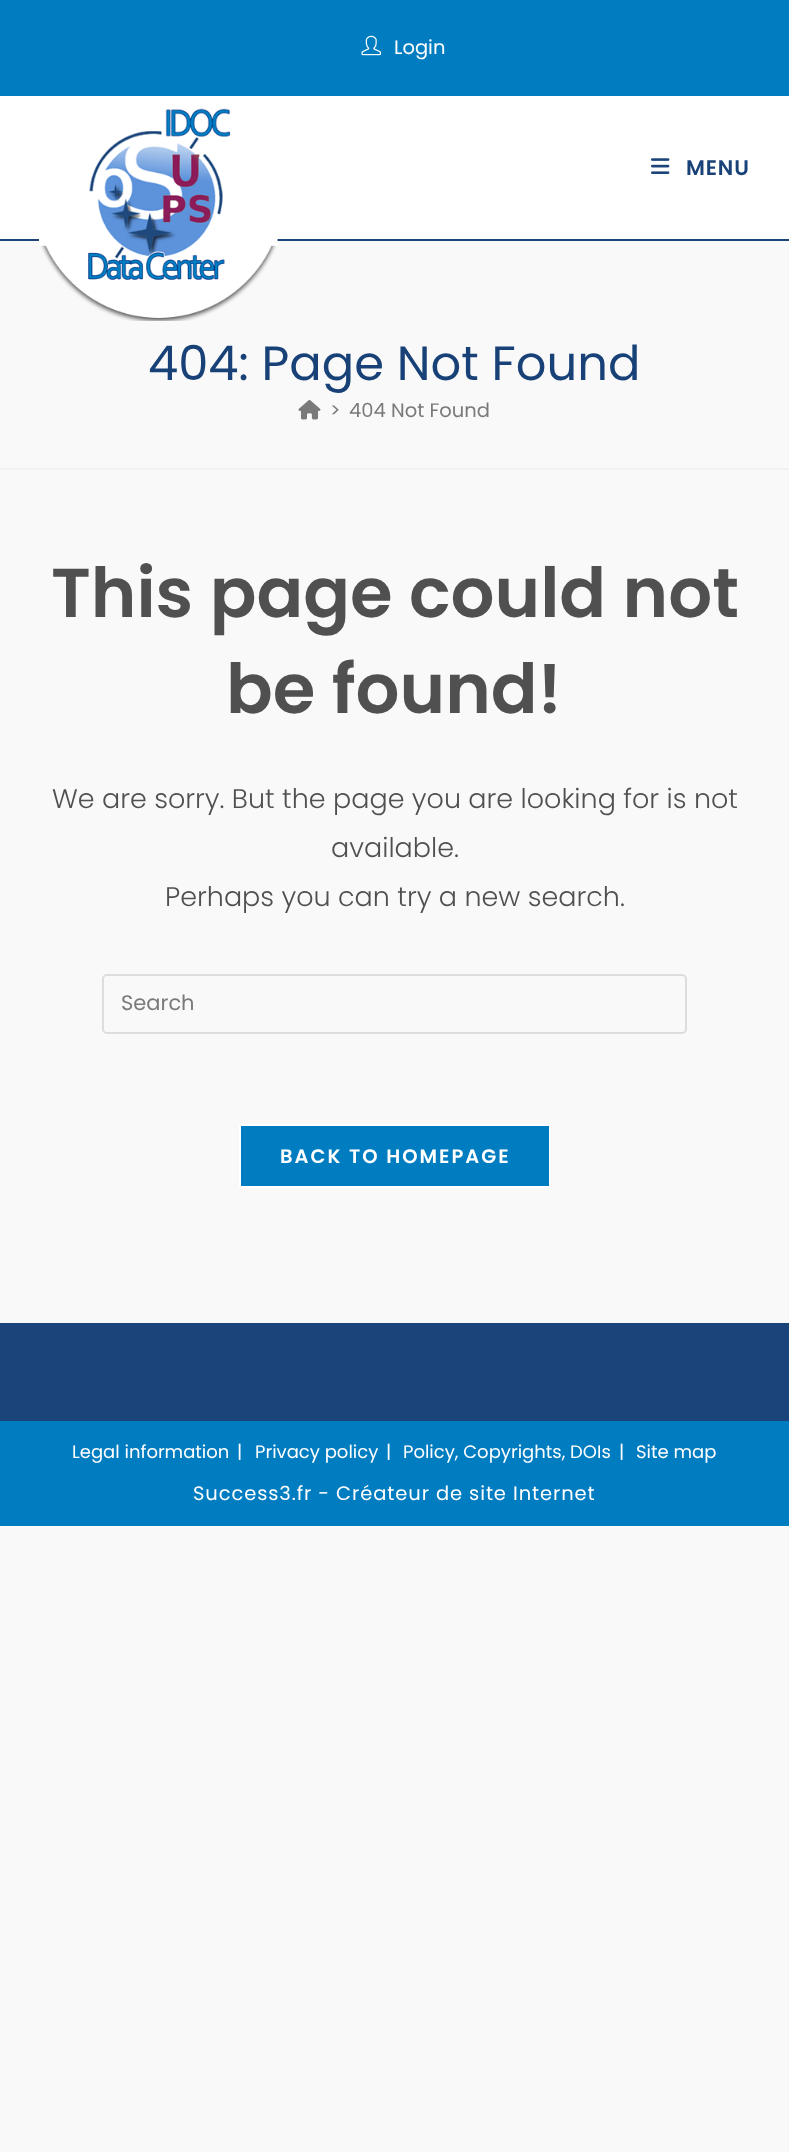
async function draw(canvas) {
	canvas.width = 789;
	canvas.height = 2152;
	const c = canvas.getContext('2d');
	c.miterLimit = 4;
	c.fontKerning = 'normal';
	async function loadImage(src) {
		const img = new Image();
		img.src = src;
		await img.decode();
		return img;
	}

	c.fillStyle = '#f9f9f9';
	c.fillRect(0, 0, 789, 2152);
	c.fillStyle = '#007cc1';
	c.fillRect(0, 0, 789, 96);
	c.drawImage(await loadImage('img1.png'), 361, 35, 20, 21);
	c.font = '19.5px Poppins';
	c.fillStyle = '#fff';
	c.fillText('Login', 394, 54);
	c.fillRect(0, 96, 789, 143);
	c.fillStyle = '#1b4479';
	c.fillRect(0, 239, 789, 2);
	c.drawImage(await loadImage('img2.png'), 39, 108, 239, 213);
	c.drawImage(await loadImage('img3.png'), 651, 158, 19, 16);
	c.letterSpacing = '0.9px';
	c.font = '600 21px Poppins';
	c.fillStyle = '#184277';
	c.fillText('MENU', 686, 175);
	c.fillStyle = '#f1f1f1';
	c.fillRect(0, 468, 789, 2);
	c.letterSpacing = '0px';
	c.font = '48px Poppins';
	c.fillStyle = '#184277';
	c.fillText('404: Page Not Found', 148, 380);
	c.drawImage(await loadImage('img4.png'), 298, 400, 23, 20);
	c.font = '19.5px Poppins';
	c.fillStyle = '#7a7a7a';
	c.fillText('>', 330, 417);
	c.fillText('404 Not Found', 349, 417);
	c.font = '600 69px Poppins';
	c.fillStyle = '#505050';
	c.fillText('This page could not', 51, 617);
	c.fillText('be found!', 226, 713);
	c.font = '300 27px Poppins';
	for (const [text, x, y] of [
		['We are sorry. But the page you are looking for is not', 52, 808],
		['available.', 331, 857],
		['Perhaps you can try a new search.', 165, 906],
	]) {
		c.fillText(text, x, y);
	}
	c.beginPath();
	c.roundRect(103, 975, 583, 58, 4);
	c.strokeStyle = '#ddd';
	c.lineWidth = 2;
	c.stroke();
	c.font = '21px Poppins';
	c.fillStyle = '#7a7a7a';
	c.fillText('Search', 121, 1010);
	c.fillStyle = '#007cc1';
	c.beginPath();
	c.rect(240, 1125, 310, 62);
	c.fill();
	c.strokeStyle = '#fff';
	c.stroke();
	c.letterSpacing = '2px';
	c.font = '600 19.5px Poppins';
	c.fillStyle = '#fff';
	c.fillText('BACK TO HOMEPAGE', 280, 1163);
	c.fillStyle = '#1b457a';
	c.fillRect(0, 1323, 789, 98);
	c.fillStyle = '#007cc1';
	c.fillRect(0, 1421, 789, 105);
	c.letterSpacing = '0px';
	c.font = '18px Poppins';
	c.fillStyle = '#fff';
	for (const [text, x, y] of [
		['Legal information', 72, 1458],
		['|', 237, 1458],
		['Privacy policy', 255, 1458],
		['|', 386, 1458],
		['Policy, Copyrights, DOIs', 403, 1458],
		['|', 619, 1458],
		['Site map', 636, 1458],
	]) {
		c.fillText(text, x, y);
	}
	c.letterSpacing = '0.9px';
	c.font = '19.5px Poppins';
	c.fillText('Success3.fr - Créateur de site Internet', 193, 1500);
}

draw(document.querySelector('canvas'));
